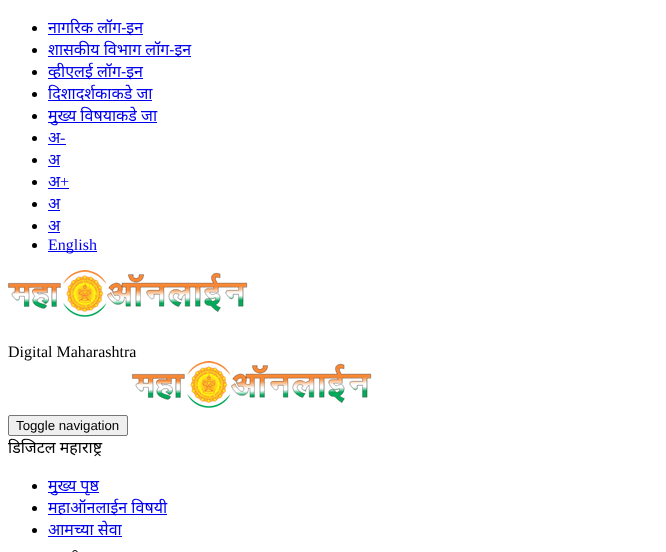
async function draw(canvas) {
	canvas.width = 666;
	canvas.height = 552;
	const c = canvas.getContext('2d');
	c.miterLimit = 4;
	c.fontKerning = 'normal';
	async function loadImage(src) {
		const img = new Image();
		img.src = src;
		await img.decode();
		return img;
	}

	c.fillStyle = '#fff';
	c.fillRect(0, 0, 666, 552);
	c.fillStyle = '#000';
	c.beginPath();
	c.arc(34.5, 28.5, 2.5, 0, 2 * Math.PI);
	c.fill();
	c.fillStyle = '#00e';
	c.fillRect(48, 34, 95, 1);
	c.font = '16px Noto Sans';
	c.fillText('नागरिक लॉग-इन', 48, 33);
	c.fillStyle = '#000';
	c.beginPath();
	c.arc(34.5, 50.5, 2.5, 0, 2 * Math.PI);
	c.fill();
	c.fillStyle = '#00e';
	c.fillRect(48, 56, 143, 1);
	c.fillText('शासकीय विभाग लॉग-इन', 48, 55);
	c.fillStyle = '#000';
	c.beginPath();
	c.arc(34.5, 72.5, 2.5, 0, 2 * Math.PI);
	c.fill();
	c.fillStyle = '#00e';
	c.fillRect(48, 78, 95, 1);
	c.fillText('व्हीएलई लॉग-इन', 48, 77);
	c.fillStyle = '#000';
	c.beginPath();
	c.arc(34.5, 94.5, 2.5, 0, 2 * Math.PI);
	c.fill();
	c.fillStyle = '#00e';
	c.fillText('दिशादर्शकाकडे जा', 48, 99);
	c.fillRect(48, 100, 104, 1);
	c.fillStyle = '#000';
	c.beginPath();
	c.arc(34.5, 116.5, 2.5, 0, 2 * Math.PI);
	c.fill();
	c.fillStyle = '#00e';
	c.fillRect(48, 122, 109, 1);
	c.fillText('मुख्य विषयाकडे जा', 48, 121);
	c.fillStyle = '#000';
	c.beginPath();
	c.arc(34.5, 138.5, 2.5, 0, 2 * Math.PI);
	c.fill();
	c.fillStyle = '#00e';
	c.fillText('अ', 48, 143);
	c.font = '16px Liberation Serif';
	c.fillText('-', 60, 143);
	c.fillRect(48, 144, 18, 1);
	c.fillStyle = '#000';
	c.beginPath();
	c.arc(34.5, 160.5, 2.5, 0, 2 * Math.PI);
	c.fill();
	c.font = '16px Noto Sans';
	c.fillStyle = '#00e';
	c.fillText('अ', 48, 165);
	c.fillRect(48, 166, 12, 1);
	c.fillStyle = '#000';
	c.beginPath();
	c.arc(34.5, 182.5, 2.5, 0, 2 * Math.PI);
	c.fill();
	c.fillStyle = '#00e';
	c.fillText('अ', 48, 187);
	c.fillRect(48, 188, 21, 1);
	c.font = '16px Liberation Serif';
	c.fillText('+', 60, 187);
	c.fillStyle = '#000';
	c.beginPath();
	c.arc(34.5, 204.5, 2.5, 0, 2 * Math.PI);
	c.fill();
	c.font = '16px Noto Sans';
	c.fillStyle = '#00e';
	c.fillText('अ', 48, 209);
	c.fillRect(48, 210, 12, 1);
	c.fillStyle = '#000';
	c.beginPath();
	c.arc(34.5, 226.5, 2.5, 0, 2 * Math.PI);
	c.fill();
	c.fillStyle = '#00e';
	c.fillText('अ', 48, 231);
	c.fillRect(48, 232, 12, 1);
	c.fillStyle = '#000';
	c.beginPath();
	c.arc(34.5, 245.5, 2.5, 0, 2 * Math.PI);
	c.fill();
	c.fillStyle = '#00e';
	c.fillRect(48, 251, 49, 1);
	c.font = '16px Liberation Serif';
	c.fillText('English', 48, 250);
	c.drawImage(await loadImage('img1.png'), 8, 270, 240, 47);
	c.fillStyle = '#000';
	c.fillText('Digital Maharashtra', 8, 357);
	c.drawImage(await loadImage('img1.png'), 132, 361, 240, 47);
	c.fillStyle = '#efefef';
	c.beginPath();
	c.roundRect(8.5, 415.5, 119, 20, 1.5);
	c.fill();
	c.strokeStyle = '#767676';
	c.stroke();
	c.font = '13.25px Liberation Sans';
	c.fillStyle = '#000';
	c.fillText('Toggle navigation', 16, 430);
	c.font = '16px Noto Sans';
	c.fillText('डिजिटल महाराष्ट्र', 8, 453);
	c.beginPath();
	c.arc(34.5, 486.5, 2.5, 0, 2 * Math.PI);
	c.fill();
	c.fillStyle = '#00e';
	c.fillRect(48, 492, 51, 1);
	c.fillText('मुख्य पृष्ठ', 48, 491);
	c.fillStyle = '#000';
	c.beginPath();
	c.arc(34.5, 508.5, 2.5, 0, 2 * Math.PI);
	c.fill();
	c.fillStyle = '#00e';
	c.fillRect(48, 514, 119, 1);
	c.fillText('महाऑनलाईन विषयी', 48, 513);
	c.fillStyle = '#000';
	c.beginPath();
	c.arc(34.5, 530.5, 2.5, 0, 2 * Math.PI);
	c.fill();
	c.fillStyle = '#00e';
	c.fillText('आमच्या सेवा', 48, 535);
	c.fillRect(48, 536, 74, 1);
	c.beginPath();
	c.arc(75, 553, 2.5, 0, 2 * Math.PI);
	c.strokeStyle = '#000';
	c.stroke();
}

draw(document.querySelector('canvas'));
